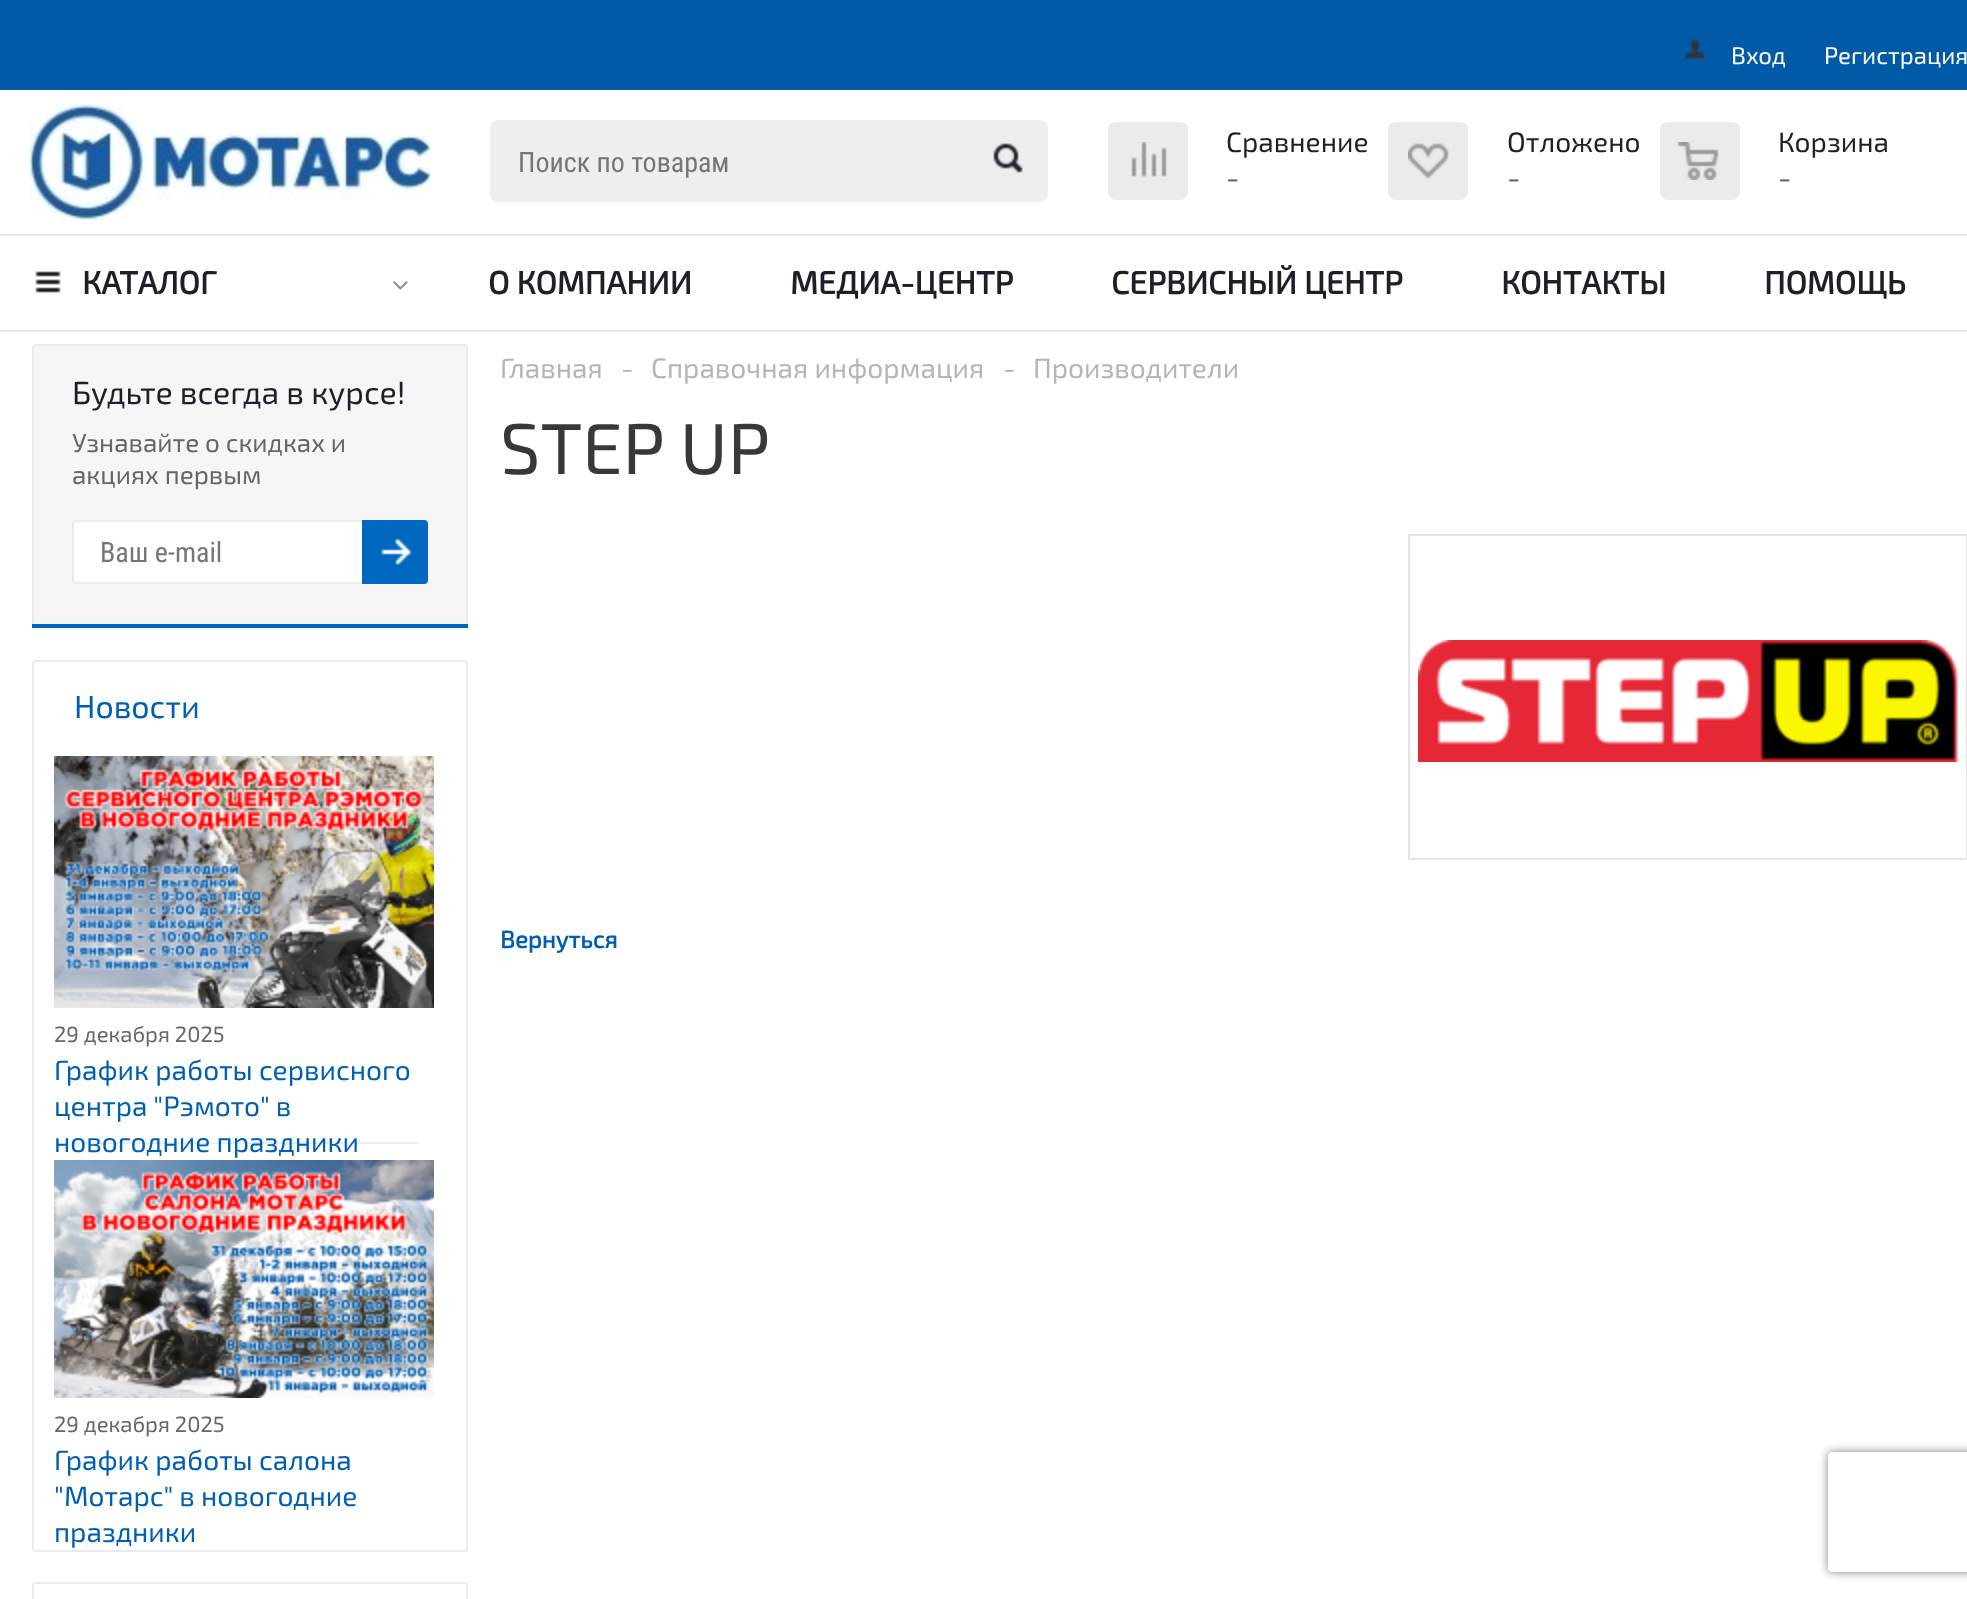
async function draw(canvas) {
	canvas.width = 1967;
	canvas.height = 1599;
	const c = canvas.getContext('2d');
	c.miterLimit = 4;
	c.fontKerning = 'normal';
	async function loadImage(src) {
		const img = new Image();
		img.src = src;
		await img.decode();
		return img;
	}

	c.fillStyle = '#fff';
	c.fillRect(0, 0, 1967, 1599);
	c.fillStyle = '#005aa6';
	c.fillRect(0, 0, 1967, 90);
	c.drawImage(await loadImage('img1.png'), 1685, 39, 20, 20);
	c.font = '24px "Exo 2"';
	c.fillStyle = '#fff';
	c.fillText('Вход', 1731, 64);
	c.fillText('Регистрация', 1824, 64);
	c.drawImage(await loadImage('img2.png'), 30, 104, 400, 116);
	c.fillStyle = '#eee';
	c.beginPath();
	c.roundRect(490, 120, 558, 82, 8);
	c.fill();
	c.font = '28px Roboto Condensed';
	c.fillStyle = '#757575';
	c.fillText('Поиск по товарам', 518, 172);
	c.drawImage(await loadImage('img3.png'), 993, 143, 30, 30);
	c.fillStyle = '#eaebec';
	c.beginPath();
	c.roundRect(1108, 122, 80, 78, 8);
	c.fill();
	c.drawImage(await loadImage('img4.png'), 1131, 142, 36, 35);
	c.font = '28px "Exo 2"';
	c.fillStyle = '#1d2029';
	c.fillText('Сравнение', 1226, 152);
	c.font = '30px "Exo 2"';
	c.fillStyle = '#5f5f5f';
	c.fillText('-', 1226, 188);
	c.fillStyle = '#eaebec';
	c.beginPath();
	c.roundRect(1388, 122, 80, 78, 8);
	c.fill();
	c.drawImage(await loadImage('img5.png'), 1408, 143, 41, 36);
	c.font = '28px "Exo 2"';
	c.fillStyle = '#1d2029';
	c.fillText('Отложено', 1507, 152);
	c.font = '30px "Exo 2"';
	c.fillStyle = '#5f5f5f';
	c.fillText('-', 1507, 188);
	c.fillStyle = '#eaebec';
	c.beginPath();
	c.roundRect(1660, 122, 80, 78, 8);
	c.fill();
	c.drawImage(await loadImage('img6.png'), 1678, 142, 41, 38);
	c.font = '28px "Exo 2"';
	c.fillStyle = '#1d2029';
	c.fillText('Корзина', 1778, 152);
	c.font = '30px "Exo 2"';
	c.fillStyle = '#5f5f5f';
	c.fillText('-', 1778, 188);
	c.fillStyle = '#e5e5e5';
	c.fillRect(0, 234, 1967, 2);
	c.fillRect(0, 330, 1967, 2);
	c.drawImage(await loadImage('img7.png'), 35, 271, 26, 22);
	c.font = 'bold 32px "Exo 2"';
	c.fillStyle = '#1d2029';
	c.fillText('КАТАЛОГ', 82, 294);
	c.drawImage(await loadImage('img8.png'), 393, 281, 15, 9);
	for (const [text, x, y] of [
		['О КОМПАНИИ', 488, 294],
		['МЕДИА-ЦЕНТР', 790, 294],
		['СЕРВИСНЫЙ ЦЕНТР', 1111, 294],
		['КОНТАКТЫ', 1501, 294],
		['ПОМОЩЬ', 1764, 294],
	]) {
		c.fillText(text, x, y);
	}
	c.fillStyle = '#f6f6f7';
	c.beginPath();
	c.roundRect(33, 345, 434, 282, [3, 3, 0, 0]);
	c.fill();
	c.strokeStyle = '#eaebec';
	c.lineWidth = 2;
	c.stroke();
	c.font = '32px "Exo 2"';
	c.fillStyle = '#1d2029';
	c.fillText('Будьте всегда в курсе!', 72, 404);
	c.font = '26px "Exo 2"';
	c.fillStyle = '#666';
	c.fillText('Узнавайте о скидках и', 72, 452);
	c.fillText('акциях первым', 72, 484);
	c.fillStyle = '#fff';
	c.beginPath();
	c.roundRect(73, 521, 354, 62, 3);
	c.fill();
	c.stroke();
	c.font = '28px Roboto Condensed';
	c.fillStyle = '#757575';
	c.fillText('Ваш e-mail', 100, 562);
	c.fillStyle = '#0067c0';
	c.beginPath();
	c.roundRect(362, 520, 66, 64, [0, 4, 4, 0]);
	c.fill();
	c.drawImage(await loadImage('img9.png'), 381, 537, 32, 28);
	c.fillRect(32, 624, 436, 4);
	c.beginPath();
	c.roundRect(33, 661, 434, 890, 3);
	c.stroke();
	c.font = '32px "Exo 2"';
	c.fillStyle = '#005fb1';
	c.fillText('Новости', 74, 718);
	c.drawImage(await loadImage('img10.png'), 54, 756, 380, 252);
	c.font = '22px "Exo 2"';
	c.fillStyle = '#666';
	c.fillText('29 декабря 2025', 54, 1042);
	c.font = '28px "Exo 2"';
	c.fillStyle = '#005fb1';
	c.fillText('График работы сервисного', 54, 1080);
	c.fillText('центра "Рэмото" в', 54, 1116);
	c.fillStyle = '#ebeef1';
	c.fillRect(72, 1142, 346, 2);
	c.fillStyle = '#005fb1';
	c.fillText('новогодние праздники', 54, 1152);
	c.drawImage(await loadImage('img11.png'), 54, 1160, 380, 238);
	c.font = '22px "Exo 2"';
	c.fillStyle = '#666';
	c.fillText('29 декабря 2025', 54, 1432);
	c.font = '28px "Exo 2"';
	c.fillStyle = '#005fb1';
	for (const [text, x, y] of [
		['График работы салона', 54, 1470],
		['"Мотарс" в новогодние', 54, 1506],
		['праздники', 54, 1542],
	]) {
		c.fillText(text, x, y);
	}
	c.beginPath();
	c.roundRect(33, 1583, 434, 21, 3);
	c.stroke();
	c.fillStyle = '#b6b5b5';
	for (const [text, x, y] of [
		['Главная', 500, 378],
		['-', 621, 378],
		['Справочная информация', 651, 378],
		['-', 1003, 378],
		['Производители', 1033, 378],
	]) {
		c.fillText(text, x, y);
	}
	c.font = '72px "Exo 2"';
	c.fillStyle = '#383838';
	c.fillText('STEP UP', 500, 474);
	c.strokeStyle = '#e5e5e5';
	c.strokeRect(1409, 535, 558, 324);
	c.drawImage(await loadImage('img12.png'), 1418, 640, 540, 122);
	c.font = 'bold 24px "Exo 2"';
	c.fillStyle = '#005fb1';
	c.fillText('Вернуться', 500, 948);
	c.save();
	c.beginPath();
	c.moveTo(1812, 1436);
	c.lineTo(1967, 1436);
	c.lineTo(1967, 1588);
	c.lineTo(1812, 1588);
	c.closePath();
	c.moveTo(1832, 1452);
	c.lineTo(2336, 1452);
	c.bezierCurveTo(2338, 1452, 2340, 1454, 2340, 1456);
	c.lineTo(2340, 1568);
	c.bezierCurveTo(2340, 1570, 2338, 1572, 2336, 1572);
	c.lineTo(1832, 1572);
	c.bezierCurveTo(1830, 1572, 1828, 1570, 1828, 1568);
	c.lineTo(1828, 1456);
	c.bezierCurveTo(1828, 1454, 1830, 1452, 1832, 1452);
	c.closePath();
	c.clip('evenodd');
	c.fillStyle = '#808080';
	c.filter = 'blur(5px)';
	c.beginPath();
	c.roundRect(1828, 1452, 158, 120, 4);
	c.fill();
	c.filter = 'none';
	c.restore();
}

draw(document.querySelector('canvas'));
